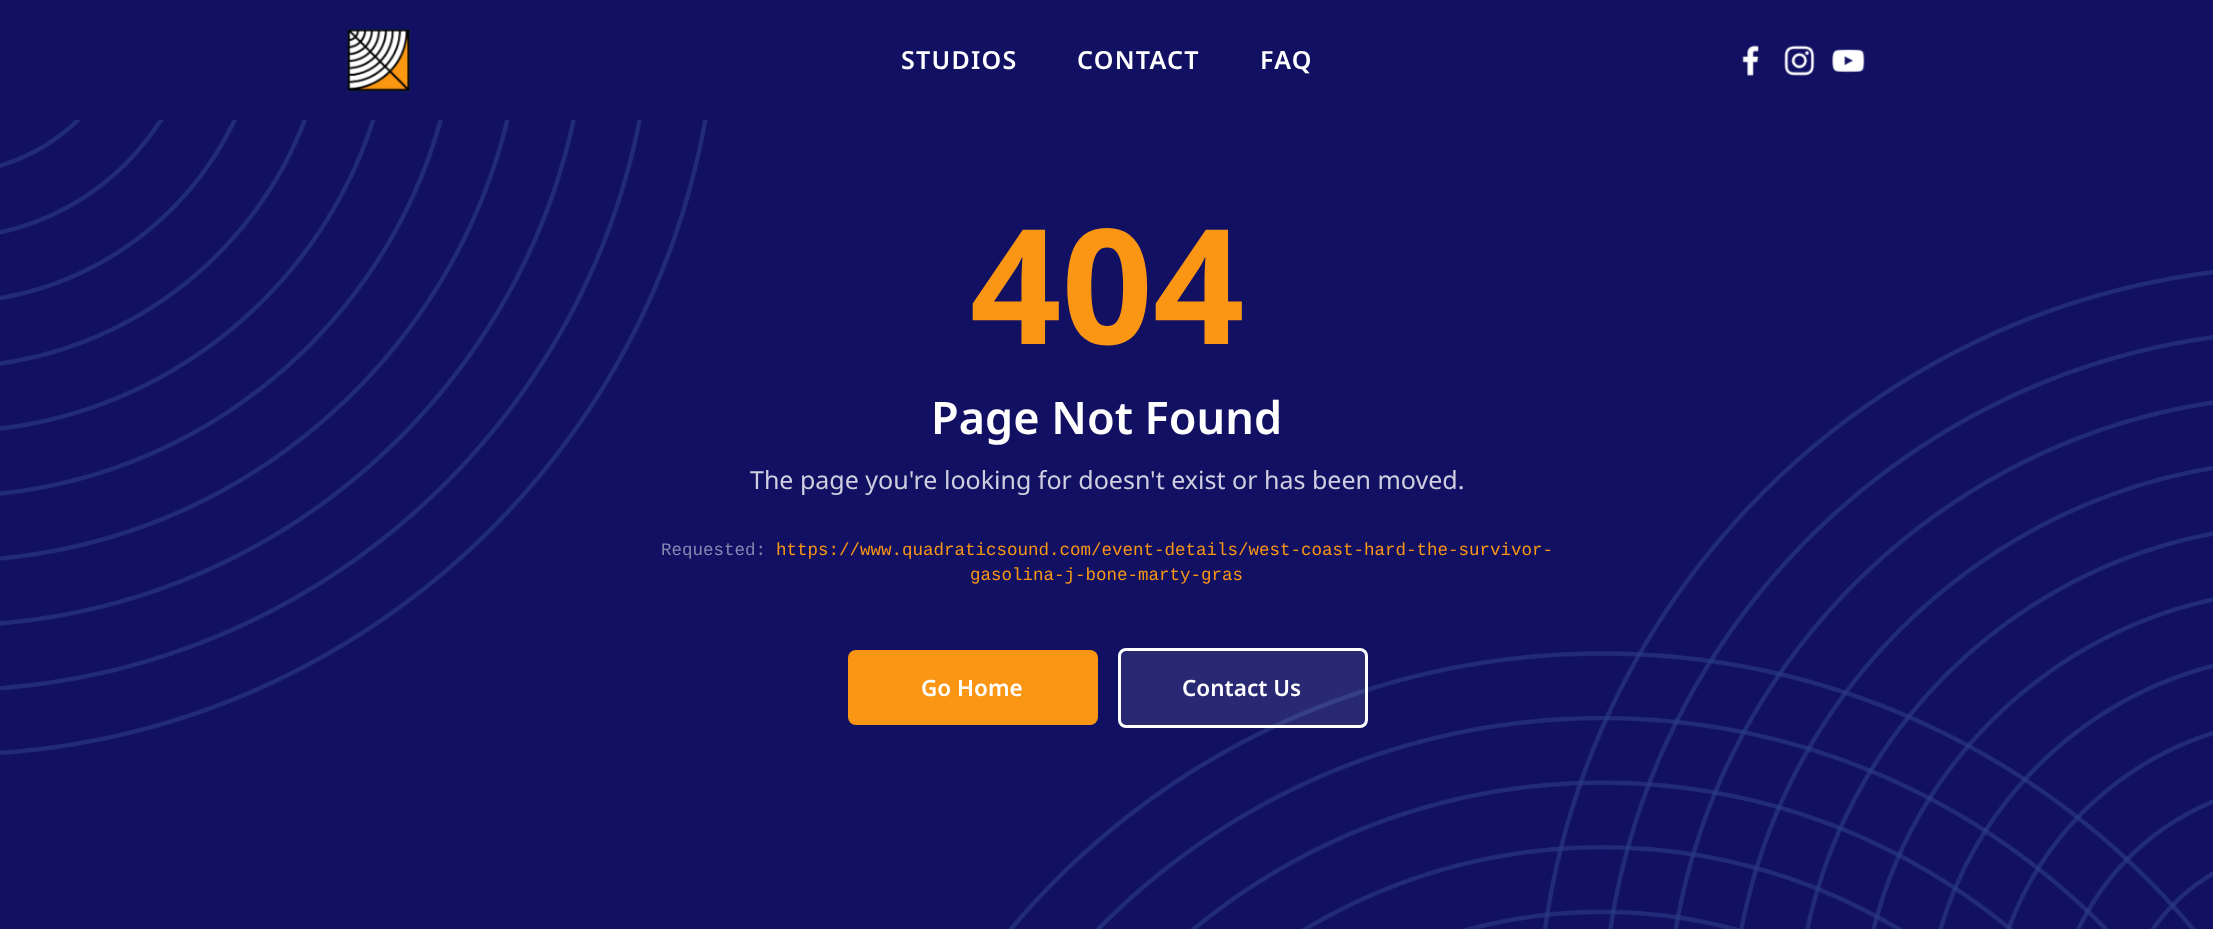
async function draw(canvas) {
	canvas.width = 2213;
	canvas.height = 929;
	const c = canvas.getContext('2d');
	c.miterLimit = 4;
	c.fontKerning = 'normal';
	async function loadImage(src) {
		const img = new Image();
		img.src = src;
		await img.decode();
		return img;
	}

	c.fillStyle = '#fff';
	c.fillRect(0, 0, 2213, 929);
	c.fillStyle = '#111063';
	c.fillRect(0, 0, 2213, 120);
	c.drawImage(await loadImage('img1.png'), 347, 29, 64, 63);
	c.letterSpacing = '1.25px';
	c.font = '600 25px Noto Sans';
	c.fillStyle = '#fff';
	for (const [text, x, y] of [
		['STUDIOS', 901, 69],
		['CONTACT', 1077, 69],
		['FAQ', 1260, 69],
	]) {
		c.fillText(text, x, y);
	}
	c.drawImage(await loadImage('img2.png'), 1742, 45, 17, 31);
	c.drawImage(await loadImage('img3.png'), 1784, 45, 31, 31);
	c.drawImage(await loadImage('img4.png'), 1832, 49, 33, 24);
	c.drawImage(await loadImage('img5.png'), 0, 120, 2213, 809);
	c.letterSpacing = '0px';
	c.font = 'bold 160px Noto Sans';
	c.fillStyle = '#fa9614';
	c.fillText('404', 970, 344);
	c.font = '600 45px Noto Sans';
	c.fillStyle = '#fff';
	c.fillText('Page Not Found', 931, 434);
	c.font = '25px Noto Sans';
	c.fillStyle = '#cfcfe0';
	c.fillText('The page you\'re looking for doesn\'t exist or has been moved.', 750, 489);
	c.font = '17.5px Liberation Mono';
	c.fillStyle = '#8887b1';
	c.fillText('Requested:', 661, 555);
	c.fillStyle = '#fa9614';
	c.fillText('https://www.quadraticsound.com/event-details/west-coast-hard-the-survivor-', 776, 555);
	c.fillText('gasolina-j-bone-marty-gras', 970, 580);
	c.beginPath();
	c.roundRect(848, 650, 250, 75, 8);
	c.fill();
	c.font = '600 22.5px Noto Sans';
	c.fillStyle = '#fff';
	c.fillText('Go Home', 921, 696);
	c.fillStyle = '#ffffff1a';
	c.beginPath();
	c.roundRect(1119.5, 649.5, 247, 77, 6.5);
	c.fill();
	c.strokeStyle = '#fff';
	c.lineWidth = 3;
	c.stroke();
	c.fillStyle = '#fff';
	c.fillText('Contact Us', 1182, 696);
}

draw(document.querySelector('canvas'));
